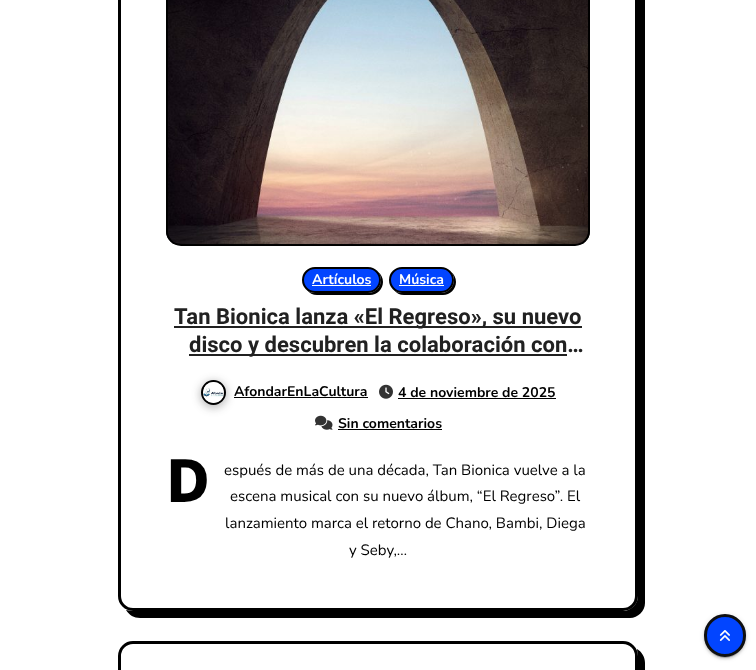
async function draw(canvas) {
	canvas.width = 756;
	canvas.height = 670;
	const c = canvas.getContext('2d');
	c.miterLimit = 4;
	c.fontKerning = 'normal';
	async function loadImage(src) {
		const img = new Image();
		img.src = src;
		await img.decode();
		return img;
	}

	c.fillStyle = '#fff';
	c.fillRect(0, 0, 756, 670);
	c.fillStyle = '#000';
	c.beginPath();
	c.moveTo(126, 610);
	c.bezierCurveTo(129, 615, 134, 618, 140, 618);
	c.lineTo(630, 618);
	c.bezierCurveTo(638, 618, 645, 611, 645, 603);
	c.lineTo(645, -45);
	c.bezierCurveTo(645, -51, 642, -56, 637, -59);
	c.bezierCurveTo(637, -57, 638, -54, 638, -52);
	c.lineTo(638, 596);
	c.bezierCurveTo(638, 604, 631, 611, 623, 611);
	c.lineTo(133, 611);
	c.bezierCurveTo(131, 611, 128, 610, 126, 610);
	c.closePath();
	c.fill();
	c.fillStyle = '#fff';
	c.beginPath();
	c.roundRect(119.5, -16.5, 517, 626, 13.5);
	c.fill();
	c.strokeStyle = '#000';
	c.lineWidth = 3;
	c.stroke();
	c.drawImage(await loadImage('img1.png'), 166, 0, 424, 244);
	c.beginPath();
	c.roundRect(167, -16, 422, 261, 14);
	c.lineWidth = 2;
	c.stroke();
	c.fillStyle = '#000';
	c.beginPath();
	c.moveTo(307, 290);
	c.bezierCurveTo(309, 293, 313, 295, 317, 295);
	c.lineTo(370, 295);
	c.bezierCurveTo(377, 295, 383, 289, 383, 282);
	c.bezierCurveTo(383, 278, 381, 274, 378, 272);
	c.bezierCurveTo(380, 274, 381, 277, 381, 280);
	c.bezierCurveTo(381, 287, 375, 293, 368, 293);
	c.lineTo(315, 293);
	c.bezierCurveTo(312, 293, 309, 292, 307, 290);
	c.closePath();
	c.fill();
	c.fillStyle = '#0245ff';
	c.beginPath();
	c.roundRect(303, 268, 77, 24, 12);
	c.fill();
	c.stroke();
	c.font = 'bold 14px Nunito';
	c.fillStyle = '#fff';
	c.fillText('Artículos', 312, 284);
	c.fillRect(312, 285, 59, 1);
	c.fillStyle = '#000';
	c.beginPath();
	c.moveTo(394, 290);
	c.bezierCurveTo(396, 293, 400, 295, 404, 295);
	c.lineTo(443, 295);
	c.bezierCurveTo(450, 295, 456, 289, 456, 282);
	c.bezierCurveTo(456, 278, 454, 274, 451, 272);
	c.bezierCurveTo(453, 274, 454, 277, 454, 280);
	c.bezierCurveTo(454, 287, 448, 293, 441, 293);
	c.lineTo(402, 293);
	c.bezierCurveTo(399, 293, 396, 292, 394, 290);
	c.closePath();
	c.fill();
	c.fillStyle = '#0245ff';
	c.beginPath();
	c.roundRect(390, 268, 63, 24, 12);
	c.fill();
	c.stroke();
	c.fillStyle = '#fff';
	c.fillText('Música', 399, 284);
	c.fillRect(399, 285, 45, 1);
	c.fillStyle = '#212121';
	c.fillRect(174, 326, 408, 2);
	c.font = 'bold 22px Heebo';
	c.fillText('Tan Bionica lanza «El Regreso», su nuevo', 174, 324);
	c.fillRect(189, 354, 378, 2);
	c.fillText('disco y descubren la colaboración con…', 189, 352);
	c.fillStyle = '#2121214d';
	c.filter = 'blur(4px)';
	c.beginPath();
	c.roundRect(200, 381, 27, 27, 13.5);
	c.fill();
	c.filter = 'none';
	c.beginPath();
	c.arc(213.5, 392.5, 11.5, 0, 2 * Math.PI);
	c.stroke();
	c.drawImage(await loadImage('img2.png'), 203, 382, 21, 21);
	c.font = 'bold 14px Nunito';
	c.fillStyle = '#000';
	c.fillText('AfondarEnLaCultura', 234, 396);
	c.fillRect(234, 397, 134, 1);
	c.drawImage(await loadImage('img3.png'), 379, 384, 14, 15);
	c.fillText('4 de noviembre de 2025', 398, 397);
	c.fillRect(398, 398, 158, 1);
	c.drawImage(await loadImage('img4.png'), 315, 415, 18, 15);
	c.fillText('Sin comentarios', 338, 428);
	c.fillRect(338, 429, 104, 1);
	c.font = '800 60px Noto Sans';
	c.fillText('D', 166, 502);
	c.font = '15px Nunito';
	for (const [text, x, y] of [
		['espués de más de una década, Tan Bionica vuelve a la', 224, 475],
		['escena musical con su nuevo álbum, “El Regreso”. El', 230, 501],
		['lanzamiento marca el retorno de Chano, Bambi, Diega', 225, 528],
		['y Seby,…', 349, 555],
	]) {
		c.fillText(text, x, y);
	}
	c.beginPath();
	c.moveTo(126, 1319);
	c.bezierCurveTo(129, 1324, 134, 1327, 140, 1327);
	c.lineTo(630, 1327);
	c.bezierCurveTo(638, 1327, 645, 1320, 645, 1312);
	c.lineTo(645, 663);
	c.bezierCurveTo(645, 657, 642, 652, 637, 649);
	c.bezierCurveTo(637, 651, 638, 654, 638, 656);
	c.lineTo(638, 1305);
	c.bezierCurveTo(638, 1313, 631, 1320, 623, 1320);
	c.lineTo(133, 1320);
	c.bezierCurveTo(131, 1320, 128, 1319, 126, 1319);
	c.closePath();
	c.fill();
	c.fillStyle = '#fff';
	c.beginPath();
	c.roundRect(119.5, 642.5, 517, 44, 13.5);
	c.fill();
	c.lineWidth = 3;
	c.stroke();
	c.fillStyle = '#0000001f';
	c.filter = 'blur(2.5px)';
	c.beginPath();
	c.roundRect(704, 615, 42, 43, 21);
	c.fill();
	c.filter = 'none';
	c.fillStyle = '#00000033';
	c.filter = 'blur(0.5px)';
	c.beginPath();
	c.roundRect(706, 619, 38, 39, 19);
	c.fill();
	c.filter = 'none';
	c.fillStyle = '#00000024';
	c.filter = 'blur(1px)';
	c.beginPath();
	c.roundRect(704, 616, 42, 43, 21);
	c.fill();
	c.filter = 'none';
	c.fillStyle = '#0245ff';
	c.beginPath();
	c.roundRect(705.5, 615.5, 39, 40, 19.5);
	c.fill();
	c.strokeStyle = '#0f1012';
	c.stroke();
	c.drawImage(await loadImage('img5.png'), 719, 630, 11, 11);
}

draw(document.querySelector('canvas'));
